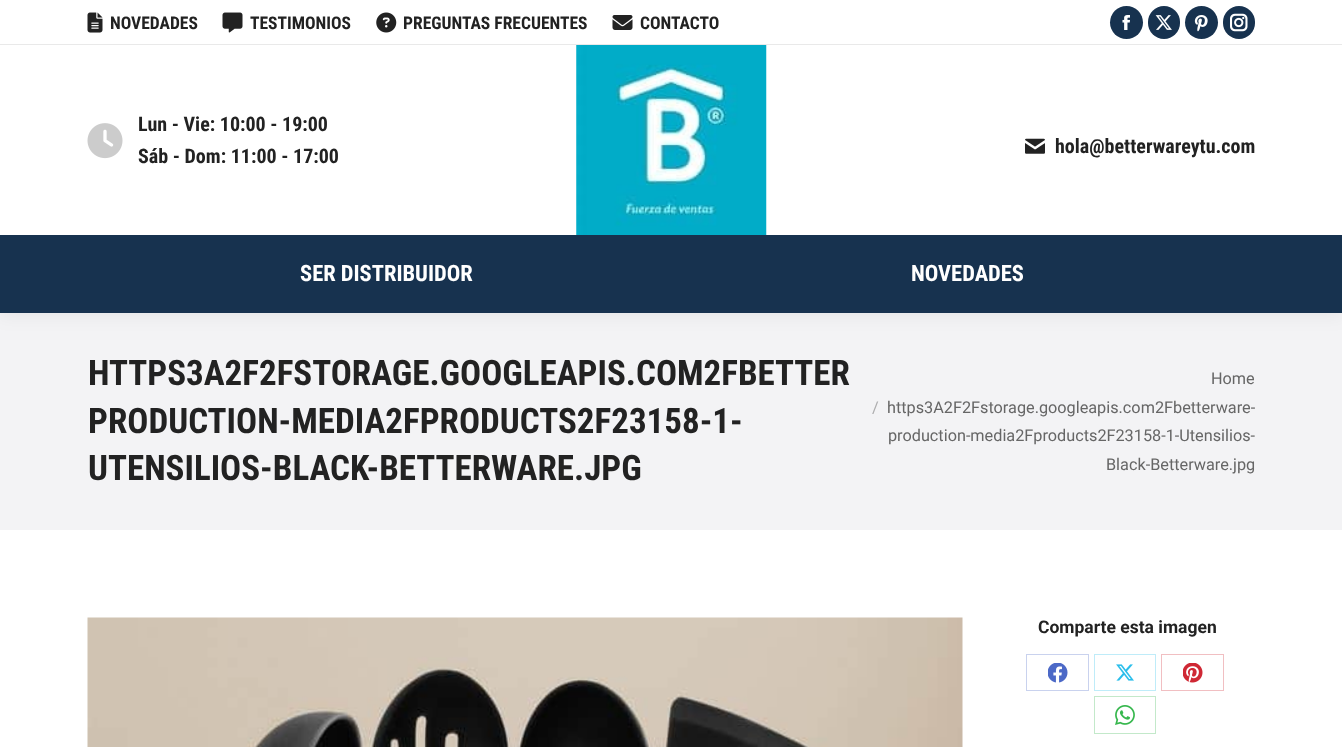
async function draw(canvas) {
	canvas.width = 1342;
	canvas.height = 747;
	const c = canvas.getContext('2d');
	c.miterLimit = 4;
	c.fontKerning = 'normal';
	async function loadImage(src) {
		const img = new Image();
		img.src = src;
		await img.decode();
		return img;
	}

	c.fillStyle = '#fff';
	c.fillRect(0, 0, 1342, 747);
	c.fillStyle = '#f3f3f5';
	c.fillRect(0, 313, 1342, 217);
	c.fillStyle = '#00000012';
	c.filter = 'blur(9.5px)';
	c.beginPath();
	c.rect(-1, -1, 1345, 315);
	c.fill();
	c.filter = 'none';
	c.fillStyle = '#fff';
	c.fillRect(0, 0, 1342, 235);
	c.drawImage(await loadImage('img1.png'), 87, 12, 16, 21);
	c.font = 'bold 17.5px Roboto Condensed';
	c.fillStyle = '#222';
	c.fillText('NOVEDADES', 110, 29);
	c.drawImage(await loadImage('img2.png'), 222, 12, 21, 21);
	c.fillText('TESTIMONIOS', 250, 29);
	c.drawImage(await loadImage('img3.png'), 376, 12, 21, 21);
	c.fillText('PREGUNTAS FRECUENTES', 403, 29);
	c.drawImage(await loadImage('img4.png'), 612, 15, 21, 15);
	c.fillText('CONTACTO', 640, 29);
	c.fillStyle = '#17324f';
	c.beginPath();
	c.arc(1126.5, 22.5, 16.5, 0, 2 * Math.PI);
	c.fill();
	c.drawImage(await loadImage('img5.png'), 1122, 15, 8, 15);
	c.beginPath();
	c.roundRect(1148, 6, 32, 33, 16);
	c.fill();
	c.drawImage(await loadImage('img6.png'), 1155, 15, 17, 15);
	c.beginPath();
	c.arc(1201.5, 22.5, 16.5, 0, 2 * Math.PI);
	c.fill();
	c.drawImage(await loadImage('img7.png'), 1194, 15, 14, 17);
	c.beginPath();
	c.roundRect(1223, 6, 32, 33, 16);
	c.fill();
	c.drawImage(await loadImage('img8.png'), 1230, 13, 18, 19);
	c.fillStyle = '#e9e9e9';
	c.fillRect(0, 44, 1342, 1);
	c.drawImage(await loadImage('img9.png'), 87, 123, 36, 36);
	c.font = 'bold 20px Roboto Condensed';
	c.fillStyle = '#222';
	c.fillText('Lun - Vie: 10:00 - 19:00', 138, 131);
	c.fillText('Sáb - Dom: 11:00 - 17:00', 138, 163);
	c.drawImage(await loadImage('img10.png'), 576, 45, 191, 190);
	c.drawImage(await loadImage('img11.png'), 1025, 138, 20, 16);
	c.fillText('hola@betterwareytu.com', 1055, 153);
	c.fillStyle = '#17324f';
	c.fillRect(0, 235, 1342, 78);
	c.font = 'bold 22.5px Roboto Condensed';
	c.fillStyle = '#fff';
	c.fillText('SER DISTRIBUIDOR', 300, 281);
	c.fillText('NOVEDADES', 911, 281);
	c.font = 'bold 35px Roboto Condensed';
	c.fillStyle = '#222';
	for (const [text, x, y] of [
		['HTTPS3A2F2FSTORAGE.GOOGLEAPIS.COM2FBETTER', 88, 385],
		['PRODUCTION-MEDIA2FPRODUCTS2F23158-1-', 88, 433],
		['UTENSILIOS-BLACK-BETTERWARE.JPG', 88, 480],
	]) {
		c.fillText(text, x, y);
	}
	c.font = '16.25px Roboto';
	c.fillStyle = '#666';
	c.fillText('Home', 1211, 384);
	c.fillStyle = '#adadae';
	c.fillText('/', 872, 413);
	c.fillStyle = '#666';
	for (const [text, x, y] of [
		['https3A2F2Fstorage.googleapis.com2Fbetterware-', 887, 413],
		['production-media2Fproducts2F23158-1-Utensilios-', 888, 441],
		['Black-Betterware.jpg', 1106, 470],
	]) {
		c.fillText(text, x, y);
	}
	c.drawImage(await loadImage('img12.png'), 87, 617, 876, 130);
	c.font = 'bold 17.5px Roboto';
	c.fillStyle = '#222';
	c.fillText('Comparte esta imagen', 1038, 633);
	c.strokeStyle = '#c9d2ee';
	c.strokeRect(1026.5, 654.5, 62, 36);
	c.drawImage(await loadImage('img13.png'), 1048, 663, 20, 20);
	c.strokeStyle = '#bfecf9';
	c.strokeRect(1094.5, 654.5, 61, 36);
	c.drawImage(await loadImage('img14.png'), 1116, 664, 18, 17);
	c.strokeStyle = '#f1bfc2';
	c.strokeRect(1161.5, 654.5, 62, 36);
	c.drawImage(await loadImage('img15.png'), 1183, 663, 20, 20);
	c.strokeStyle = '#c3e9ca';
	c.strokeRect(1094.5, 696.5, 61, 37);
	c.drawImage(await loadImage('img16.png'), 1115, 705, 20, 20);
}

draw(document.querySelector('canvas'));
